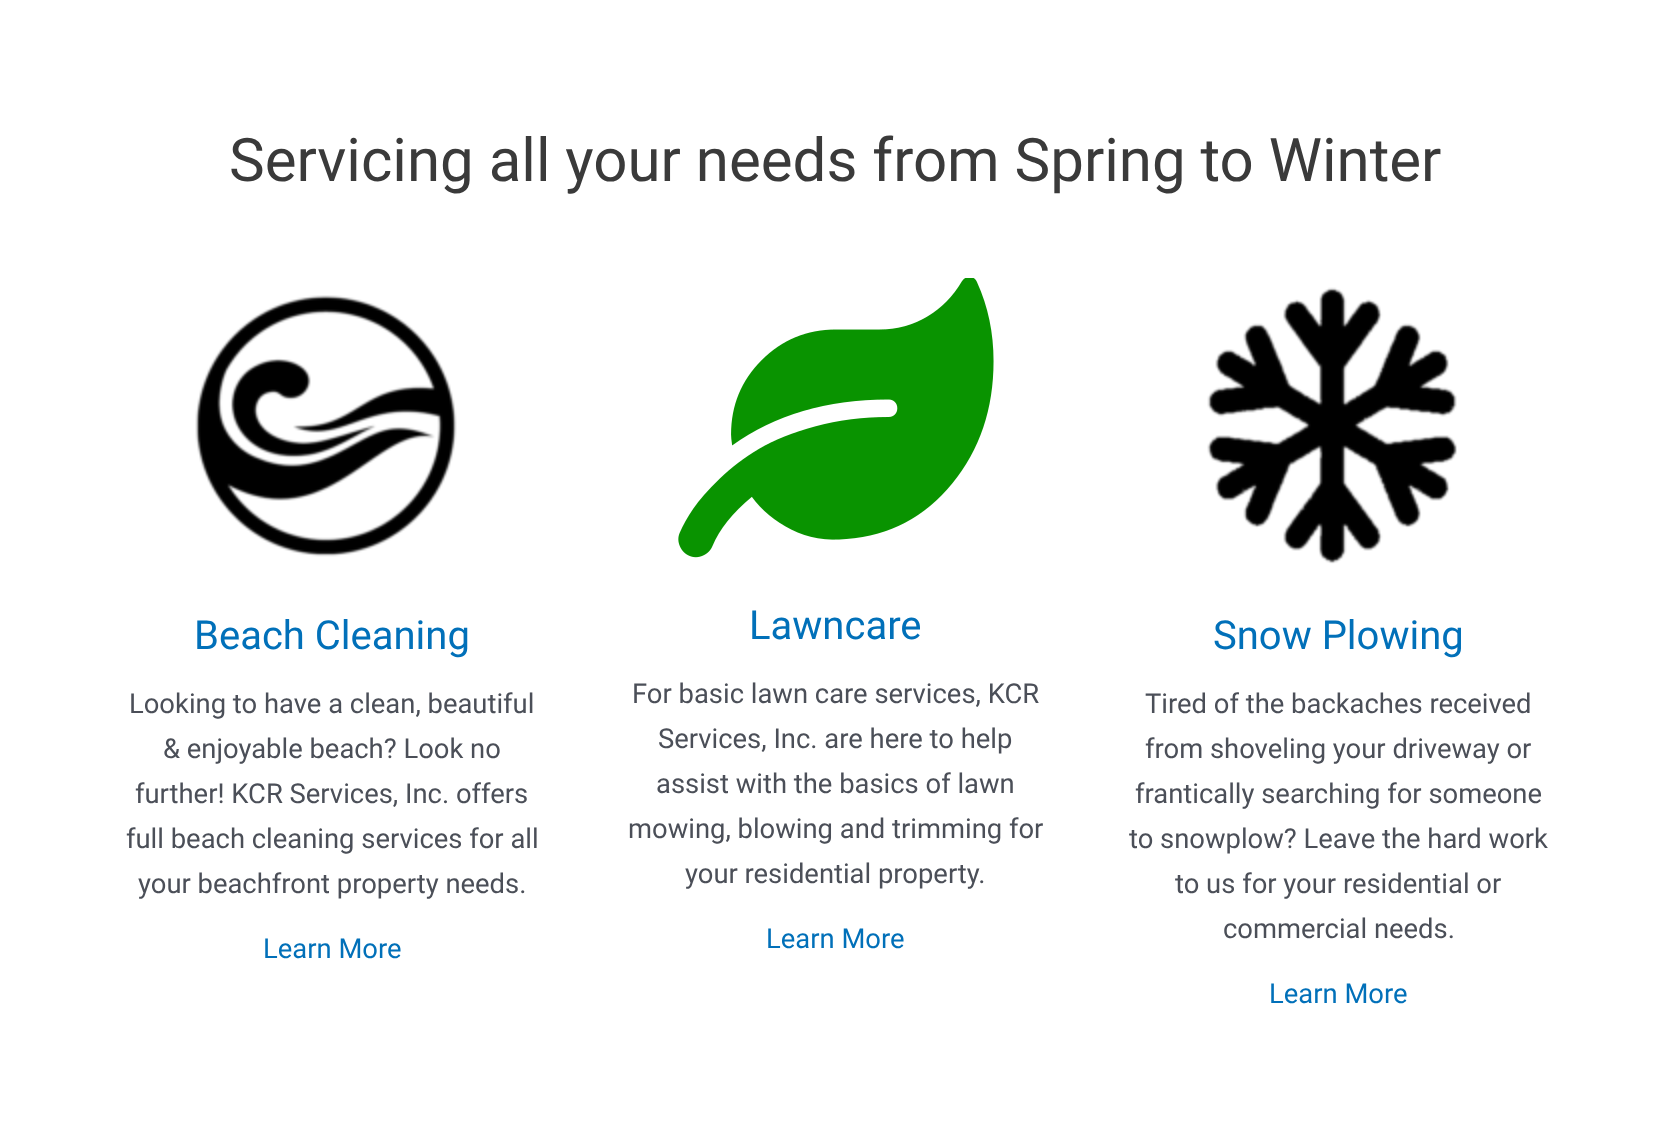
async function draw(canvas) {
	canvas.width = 1670;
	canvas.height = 1125;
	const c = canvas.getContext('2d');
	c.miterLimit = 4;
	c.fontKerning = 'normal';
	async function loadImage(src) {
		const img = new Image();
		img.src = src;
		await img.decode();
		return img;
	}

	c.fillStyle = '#fff';
	c.fillRect(0, 0, 1670, 1125);
	c.font = '60px Roboto';
	c.fillStyle = '#3a3a3a';
	c.fillText('Servicing all your needs from Spring to Winter', 229, 181);
	c.drawImage(await loadImage('img1.png'), 195, 295, 262, 262);
	c.font = '40px Roboto';
	c.fillStyle = '#0170b9';
	c.fillText('Beach Cleaning', 194, 649);
	c.font = '27.4px Roboto';
	c.fillStyle = '#4b4f58';
	for (const [text, x, y] of [
		['Looking to have a clean, beautiful', 129, 713],
		['& enjoyable beach? Look no', 163, 758],
		['further! KCR Services, Inc. offers', 135, 803],
		['full beach cleaning services for all', 126, 848],
		['your beachfront property needs.', 138, 893],
	]) {
		c.fillText(text, x, y);
	}
	c.fillStyle = '#0170b9';
	c.fillText('Learn More', 263, 958);
	c.drawImage(await loadImage('img2.png'), 678, 278, 316, 280);
	c.font = '40px Roboto';
	c.fillText('Lawncare', 749, 639);
	c.font = '27.4px Roboto';
	c.fillStyle = '#4b4f58';
	for (const [text, x, y] of [
		['For basic lawn care services, KCR', 632, 703],
		['Services, Inc. are here to help', 658, 748],
		['assist with the basics of lawn', 656, 793],
		['mowing, blowing and trimming for', 628, 838],
		['your residential property.', 685, 883],
	]) {
		c.fillText(text, x, y);
	}
	c.fillStyle = '#0170b9';
	c.fillText('Learn More', 766, 948);
	c.drawImage(await loadImage('img3.png'), 1207, 287, 250, 277);
	c.font = '40px Roboto';
	c.fillText('Snow Plowing', 1213, 649);
	c.font = '27.4px Roboto';
	c.fillStyle = '#4b4f58';
	for (const [text, x, y] of [
		['Tired of the backaches received', 1145, 713],
		['from shoveling your driveway or', 1145, 758],
		['frantically searching for someone', 1135, 803],
		['to snowplow? Leave the hard work', 1129, 848],
		['to us for your residential or', 1175, 893],
		['commercial needs.', 1223, 938],
	]) {
		c.fillText(text, x, y);
	}
	c.fillStyle = '#0170b9';
	c.fillText('Learn More', 1269, 1003);
}

draw(document.querySelector('canvas'));
